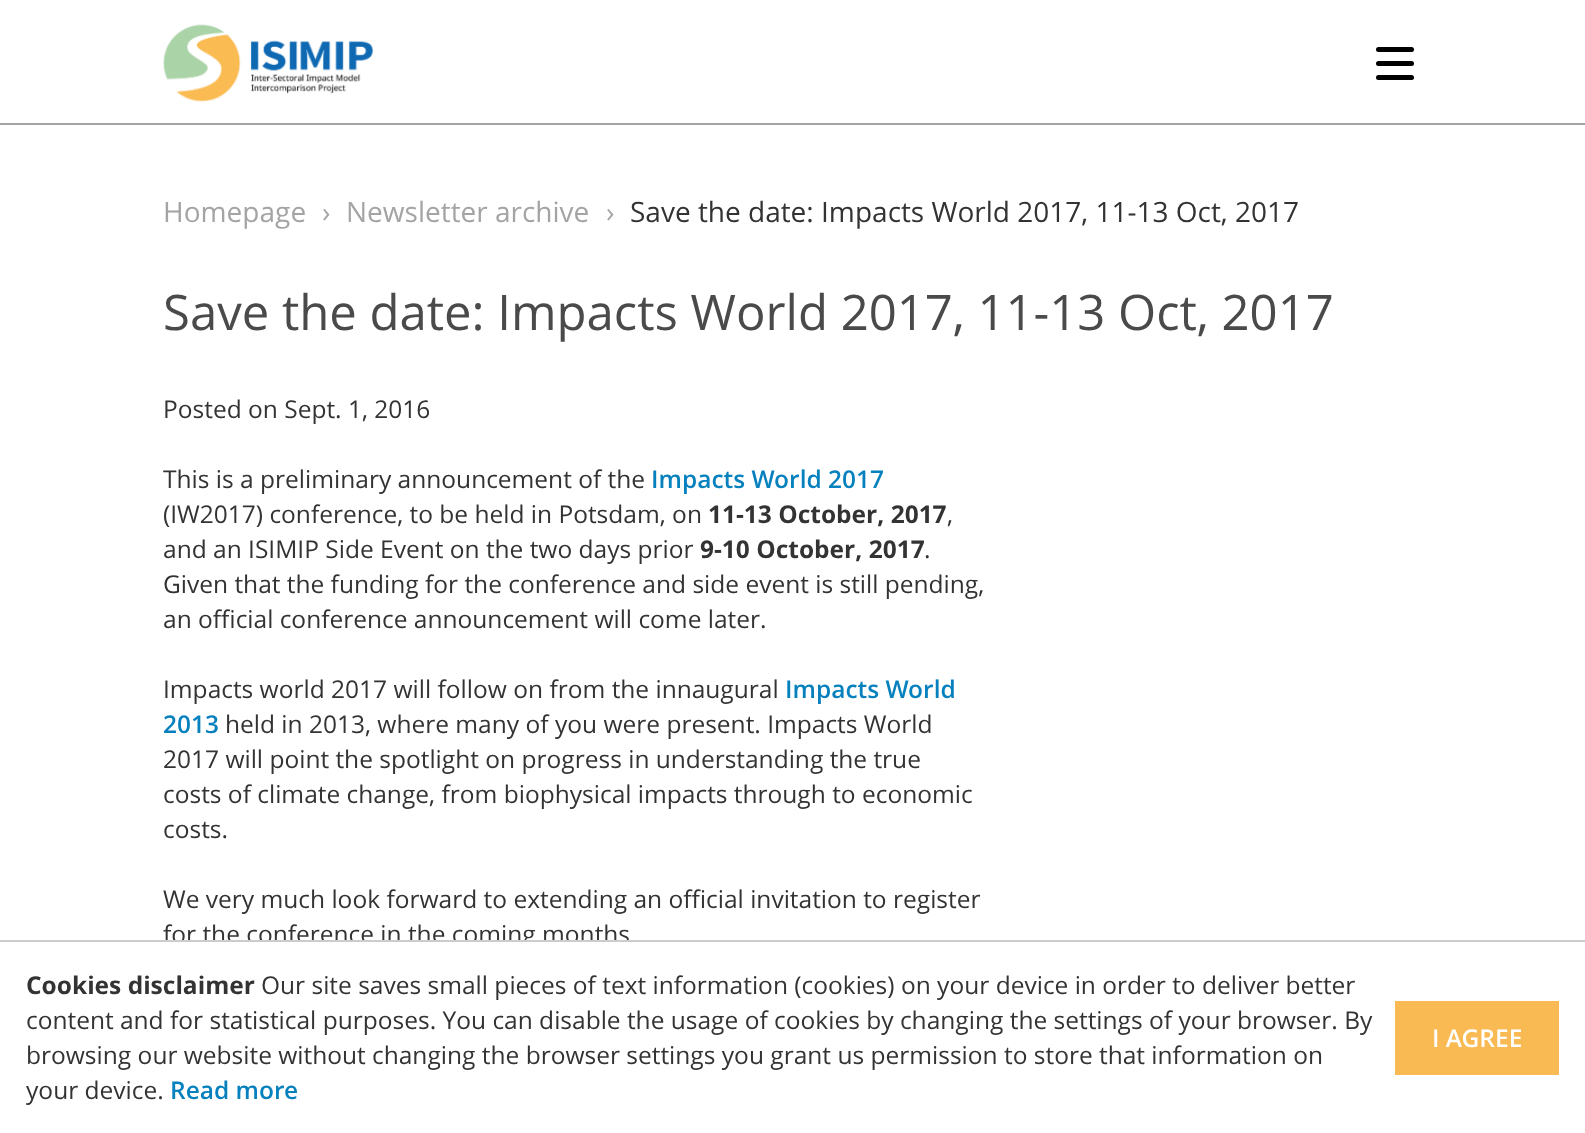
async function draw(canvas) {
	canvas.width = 1585;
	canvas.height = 1133;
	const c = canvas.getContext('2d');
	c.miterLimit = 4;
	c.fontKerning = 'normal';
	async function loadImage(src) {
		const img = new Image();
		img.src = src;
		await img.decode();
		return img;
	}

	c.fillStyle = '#fff';
	c.fillRect(0, 0, 1585, 1133);
	c.fillStyle = '#a4a4a4';
	c.fillRect(0, 123, 1585, 2);
	c.drawImage(await loadImage('img1.png'), 163, 24, 210, 78);
	c.fillStyle = '#000';
	c.beginPath();
	c.roundRect(1376, 47, 38, 5, 2.5);
	c.fill();
	c.beginPath();
	c.roundRect(1376, 61, 38, 5, 2.5);
	c.fill();
	c.beginPath();
	c.roundRect(1376, 75, 38, 5, 2.5);
	c.fill();
	c.font = '28px Open Sans';
	c.fillStyle = '#a4a4a4';
	for (const [text, x, y] of [
		['Homepage', 163, 222],
		['›', 322, 222],
		['Newsletter archive', 346, 222],
		['›', 606, 222],
	]) {
		c.fillText(text, x, y);
	}
	c.fillStyle = '#333';
	c.fillText('Save the date: Impacts World 2017, 11-13 Oct, 2017', 630, 222);
	c.font = '49px Open Sans';
	c.fillStyle = '#4a4a4a';
	c.fillText('Save the date: Impacts World 2017, 11-13 Oct, 2017', 163, 330);
	c.font = '24.5px Open Sans';
	c.fillStyle = '#333';
	c.fillText('Posted on Sept. 1, 2016', 163, 418);
	c.fillText('This is a preliminary announcement of the', 163, 488);
	c.font = '600 24.5px Open Sans';
	c.fillStyle = '#0681be';
	c.fillText('Impacts World 2017', 651, 488);
	c.font = '24.5px Open Sans';
	c.fillStyle = '#333';
	c.fillText('(IW2017) conference, to be held in Potsdam, on', 163, 523);
	c.font = 'bold 24.5px Open Sans';
	c.fillText('11-13 October, 2017', 708, 523);
	c.font = '24.5px Open Sans';
	c.fillText(',', 947, 523);
	c.fillText('and an ISIMIP Side Event on the two days prior', 163, 558);
	c.font = 'bold 24.5px Open Sans';
	c.fillText('9-10 October, 2017', 700, 558);
	c.font = '24.5px Open Sans';
	for (const [text, x, y] of [
		['.', 924, 558],
		['Given that the funding for the conference and side event is still pending,', 163, 593],
		['an official conference announcement will come later.', 163, 628],
		['Impacts world 2017 will follow on from the innaugural', 163, 698],
	]) {
		c.fillText(text, x, y);
	}
	c.font = '600 24.5px Open Sans';
	c.fillStyle = '#0681be';
	c.fillText('Impacts World', 785, 698);
	c.fillText('2013', 163, 733);
	c.font = '24.5px Open Sans';
	c.fillStyle = '#333';
	for (const [text, x, y] of [
		['held in 2013, where many of you were present. Impacts World', 225, 733],
		['2017 will point the spotlight on progress in understanding the true', 163, 768],
		['costs of climate change, from biophysical impacts through to economic', 163, 803],
		['costs.', 163, 838],
		['We very much look forward to extending an official invitation to register', 163, 908],
		['for the conference in the coming months', 163, 943],
	]) {
		c.fillText(text, x, y);
	}
	c.fillStyle = '#fff';
	c.fillRect(165, 942, 463, 7);
	c.fillStyle = '#ccc';
	c.fillRect(0, 940, 1585, 2);
	c.font = 'bold 24.5px Open Sans';
	c.fillStyle = '#333';
	c.fillText('Cookies disclaimer', 26, 994);
	c.font = '24.5px Open Sans';
	c.fillText('Our site saves small pieces of text information (cookies) on your device in order to deliver better', 261, 994);
	c.fillText('content and for statistical purposes. You can disable the usage of cookies by changing the settings of your browser. By', 26, 1029);
	c.fillStyle = '#faba53';
	c.fillRect(1395, 1001, 164, 74);
	c.font = '600 24.5px Open Sans';
	c.fillStyle = '#fff';
	c.fillText('I AGREE', 1432, 1047);
	c.font = '24.5px Open Sans';
	c.fillStyle = '#333';
	c.fillText('browsing our website without changing the browser settings you grant us permission to store that information on', 26, 1064);
	c.fillText('your device.', 26, 1099);
	c.font = '600 24.5px Open Sans';
	c.fillStyle = '#0681be';
	c.fillText('Read more', 170, 1099);
}

draw(document.querySelector('canvas'));
